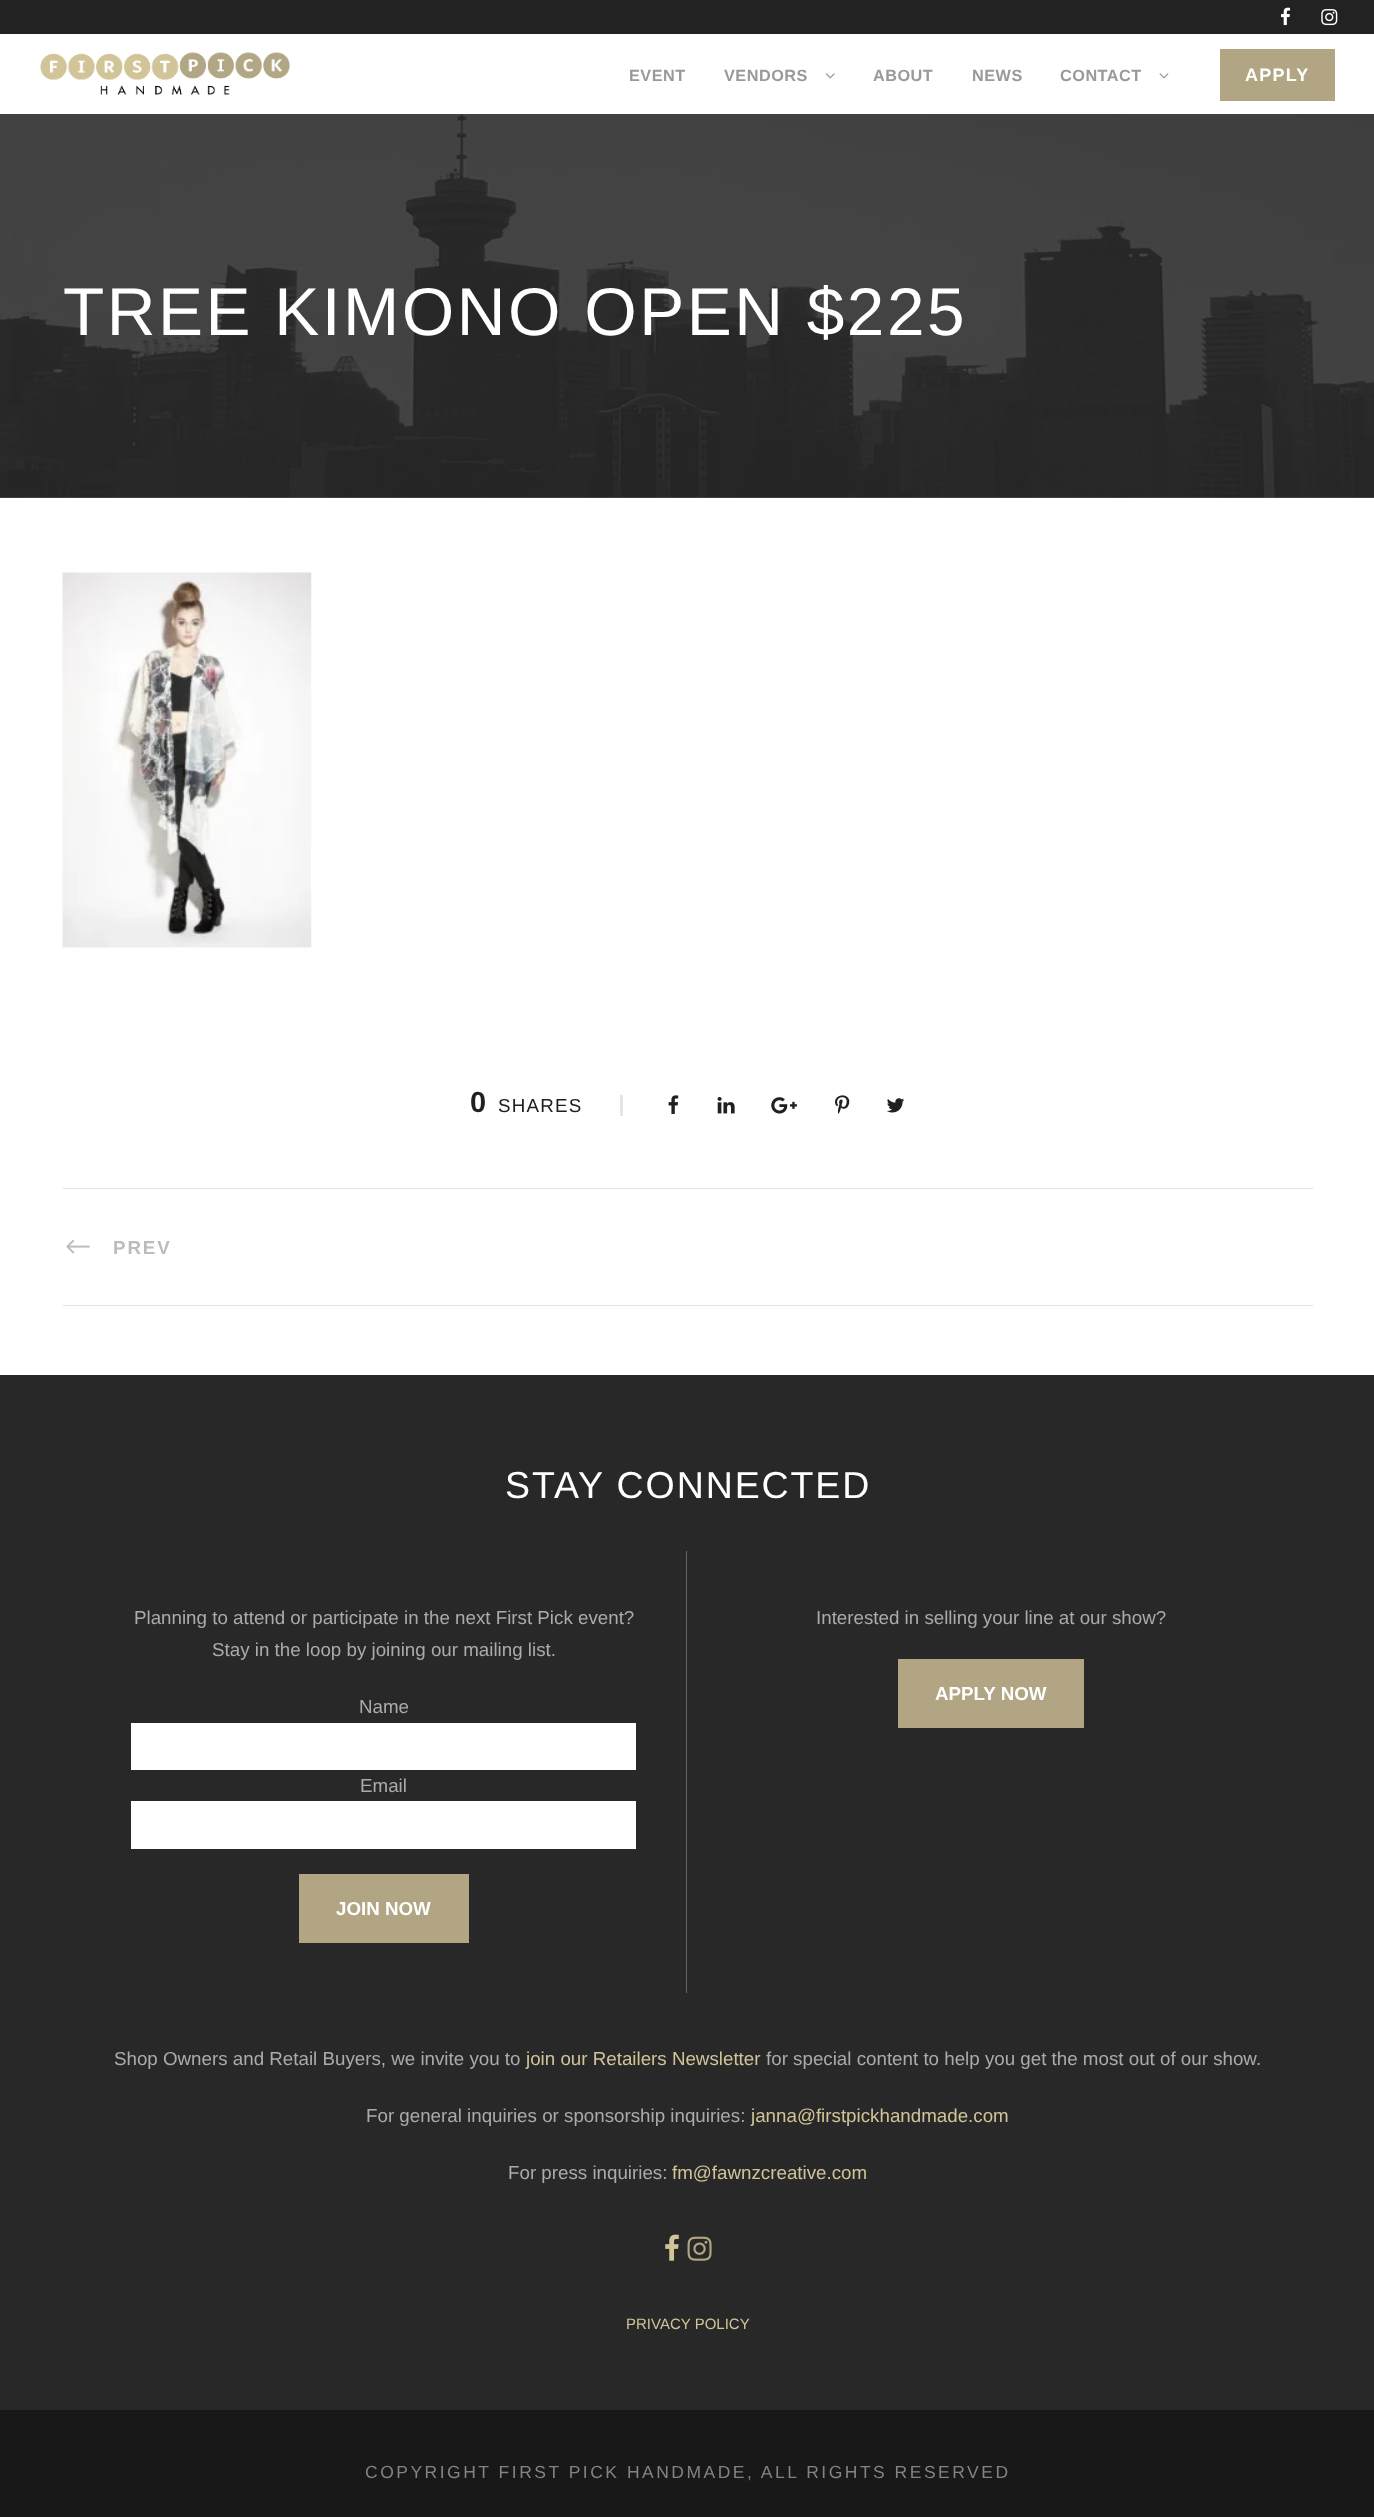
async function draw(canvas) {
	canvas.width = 1374;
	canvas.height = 2517;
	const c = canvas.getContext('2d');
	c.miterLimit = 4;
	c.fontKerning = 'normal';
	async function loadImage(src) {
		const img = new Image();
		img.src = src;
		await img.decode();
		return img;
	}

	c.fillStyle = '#fff';
	c.fillRect(0, 0, 1374, 2517);
	c.fillStyle = '#5f5f5f';
	c.fillRect(0, 497, 1374, 1);
	c.fillStyle = '#222';
	c.fillRect(0, 0, 1374, 34);
	c.drawImage(await loadImage('img1.png'), 1281, 7, 10, 19);
	c.drawImage(await loadImage('img2.png'), 1321, 9, 17, 17);
	c.drawImage(await loadImage('img3.png'), 40, 52, 250, 43);
	c.letterSpacing = '0.5px';
	c.font = 'bold 16.25px Liberation Sans';
	c.fillStyle = '#999';
	c.fillText('EVENT', 629, 81);
	c.fillText('VENDORS', 724, 81);
	c.drawImage(await loadImage('img4.png'), 825, 73, 10, 6);
	for (const [text, x, y] of [
		['ABOUT', 873, 81],
		['NEWS', 972, 81],
		['CONTACT', 1060, 81],
	]) {
		c.fillText(text, x, y);
	}
	c.drawImage(await loadImage('img5.png'), 1159, 73, 10, 6);
	c.fillStyle = '#b1a583';
	c.fillRect(1220, 49, 115, 52);
	c.letterSpacing = '1.25px';
	c.font = 'bold 18px Liberation Sans';
	c.fillStyle = '#fff';
	c.fillText('APPLY', 1245, 81);
	c.drawImage(await loadImage('img6.png'), 0, 114, 1374, 384);
	c.letterSpacing = '2.5px';
	c.font = '67.5px Liberation Sans';
	c.fillText('TREE KIMONO OPEN $225', 63, 335);
	c.drawImage(await loadImage('img7.png'), 62, 572, 250, 376);
	c.letterSpacing = '0px';
	c.font = 'bold 29px Liberation Sans';
	c.fillStyle = '#202020';
	c.fillText('0', 470, 1112);
	c.letterSpacing = '1.25px';
	c.font = '18.75px Liberation Sans';
	c.fillText('SHARES', 498, 1112);
	c.fillStyle = '#e5e5e5';
	c.fillRect(620, 1095, 3, 21);
	c.drawImage(await loadImage('img8.png'), 668, 1095, 11, 19);
	c.drawImage(await loadImage('img9.png'), 717, 1097, 18, 17);
	c.drawImage(await loadImage('img10.png'), 771, 1097, 26, 17);
	c.drawImage(await loadImage('img11.png'), 835, 1095, 15, 19);
	c.drawImage(await loadImage('img12.png'), 886, 1098, 19, 15);
	c.fillStyle = '#e2e2e2';
	c.fillRect(63, 1188, 1250, 1);
	c.fillRect(63, 1305, 1250, 1);
	c.drawImage(await loadImage('img13.png'), 66, 1239, 24, 15);
	c.letterSpacing = '1.9px';
	c.font = 'bold 18.75px Liberation Sans';
	c.fillStyle = '#bcbcbc';
	c.fillText('PREV', 113, 1254);
	c.fillStyle = '#282828';
	c.fillRect(0, 1375, 1374, 1035);
	c.font = '37.5px Liberation Sans';
	c.fillStyle = '#fff';
	c.fillText('STAY CONNECTED', 505, 1498);
	c.fillStyle = '#666';
	c.fillRect(686, 1551, 1, 442);
	c.letterSpacing = '0px';
	c.font = '18.75px Liberation Sans';
	c.fillStyle = '#ababab';
	for (const [text, x, y] of [
		['Planning to attend or participate in the next First Pick event?', 134, 1624],
		['Stay in the loop by joining our mailing list.', 212, 1656],
		['Name', 359, 1713],
	]) {
		c.fillText(text, x, y);
	}
	c.fillStyle = '#fff';
	c.fillRect(131, 1723, 505, 47);
	c.fillStyle = '#ababab';
	c.fillText('Email', 360, 1792);
	c.fillStyle = '#fff';
	c.fillRect(131, 1801, 505, 48);
	c.fillStyle = '#b1a583';
	c.fillRect(299, 1874, 170, 69);
	c.font = 'bold 18.75px Liberation Sans';
	c.fillStyle = '#fff';
	c.fillText('JOIN NOW', 336, 1915);
	c.font = '18.75px Liberation Sans';
	c.fillStyle = '#ababab';
	c.fillText('Interested in selling your line at our show?', 816, 1624);
	c.fillStyle = '#b1a583';
	c.fillRect(898, 1659, 186, 69);
	c.font = 'bold 18.75px Liberation Sans';
	c.fillStyle = '#fff';
	c.fillText('APPLY NOW', 935, 1700);
	c.font = '18.75px Liberation Sans';
	c.fillStyle = '#ababab';
	c.fillText('Shop Owners and Retail Buyers, we invite you to', 114, 2065);
	c.fillStyle = '#d1c499';
	c.fillText('join our Retailers Newsletter', 526, 2065);
	c.fillStyle = '#ababab';
	c.fillText('for special content to help you get the most out of our show.', 766, 2065);
	c.fillText('For general inquiries or sponsorship inquiries:', 366, 2122);
	c.fillStyle = '#d1c499';
	c.fillText('janna@firstpickhandmade.com', 751, 2122);
	c.fillStyle = '#ababab';
	c.fillText('For press inquiries:', 508, 2179);
	c.fillStyle = '#d1c499';
	c.fillText('fm@fawnzcreative.com', 672, 2179);
	c.drawImage(await loadImage('img14.png'), 665, 2234, 14, 27);
	c.drawImage(await loadImage('img15.png'), 687, 2236, 25, 25);
	c.font = '15px Liberation Sans';
	c.fillText('PRIVACY POLICY', 626, 2329);
	c.fillStyle = '#181818';
	c.fillRect(0, 2410, 1374, 107);
	c.letterSpacing = '2.5px';
	c.font = '17.5px Liberation Sans';
	c.fillStyle = '#838383';
	c.fillText('COPYRIGHT FIRST PICK HANDMADE, ALL RIGHTS RESERVED', 365, 2478);
}

draw(document.querySelector('canvas'));
